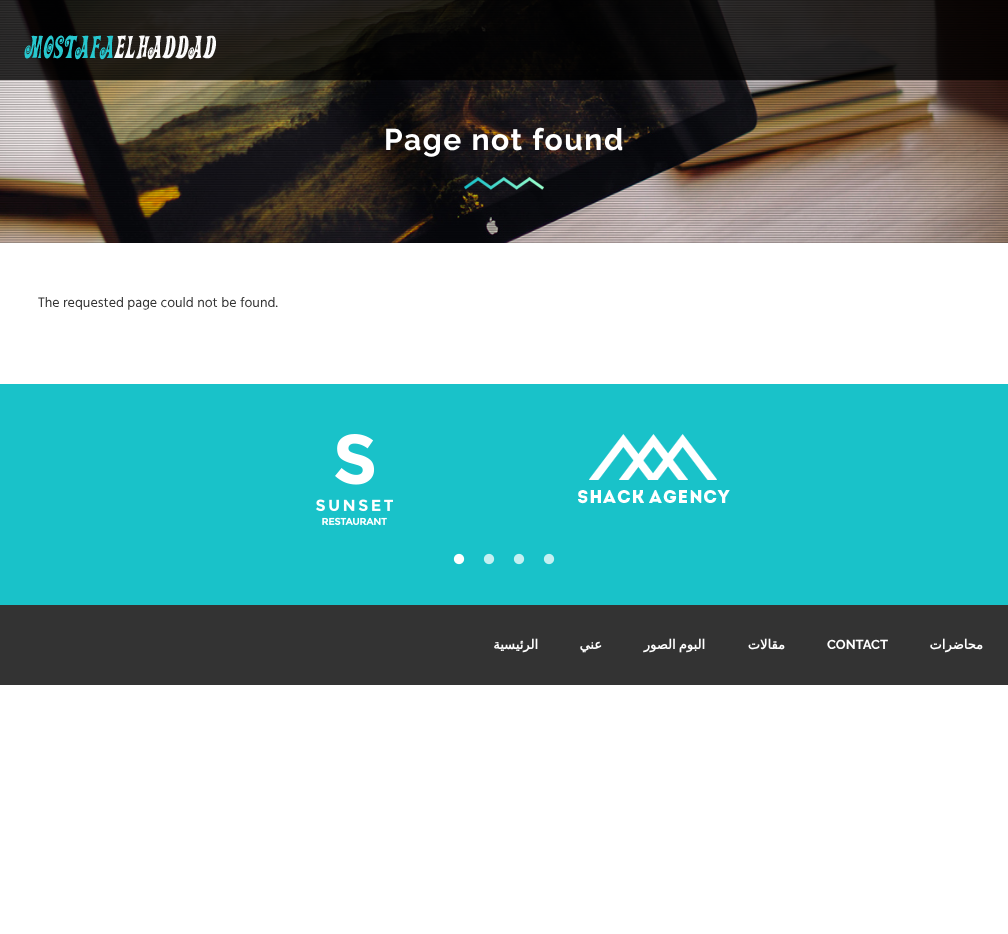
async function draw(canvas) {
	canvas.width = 1008;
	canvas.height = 934;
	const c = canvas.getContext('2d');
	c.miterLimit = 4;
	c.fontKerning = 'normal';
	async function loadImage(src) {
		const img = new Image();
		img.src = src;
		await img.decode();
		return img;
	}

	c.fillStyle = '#fff';
	c.fillRect(0, 0, 1008, 934);
	c.drawImage(await loadImage('img2.png'), 0, 0, 1008, 243);
	c.fillStyle = '#000000cc';
	c.fillRect(0, 0, 1008, 80);
	c.drawImage(await loadImage('img1.png'), 24, 35, 192, 25);
	c.drawImage(await loadImage('img3.png'), 464, 177, 80, 13);
	c.letterSpacing = '1.5px';
	c.font = 'bold 30px Raleway';
	c.fillStyle = '#fff';
	c.fillText('Page not found', 384, 150);
	c.letterSpacing = '0px';
	c.font = '14px Hind';
	c.fillStyle = '#333';
	c.fillText('The requested page could not be found.', 38, 307);
	c.fillStyle = '#19c2c9';
	c.fillRect(0, 384, 1008, 221);
	c.drawImage(await loadImage('img4.png'), 316, 434, 77, 91);
	c.drawImage(await loadImage('img5.png'), 578, 434, 152, 70);
	c.drawImage(await loadImage('img6.png'), 453, 553, 12, 12);
	c.drawImage(await loadImage('img7.png'), 483, 553, 12, 12);
	c.drawImage(await loadImage('img7.png'), 513, 553, 12, 12);
	c.drawImage(await loadImage('img7.png'), 543, 553, 12, 12);
	c.fillStyle = '#333';
	c.fillRect(0, 605, 1008, 80);
	c.direction = 'rtl';
	c.font = 'bold 13px DejaVu Sans';
	c.fillStyle = '#fff';
	c.fillText('الرئيسية', 538, 649);
	c.fillText('عني', 602, 649);
	c.wordSpacing = '-1px';
	c.fillText('البوم الصور', 705, 649);
	c.wordSpacing = '0px';
	c.fillText('مقالات', 785, 649);
	c.direction = 'ltr';
	c.font = 'bold 13px Raleway';
	c.fillText('CONTACT', 827, 649);
	c.direction = 'rtl';
	c.font = 'bold 13px DejaVu Sans';
	c.fillText('محاضرات', 983, 649);
}

draw(document.querySelector('canvas'));
